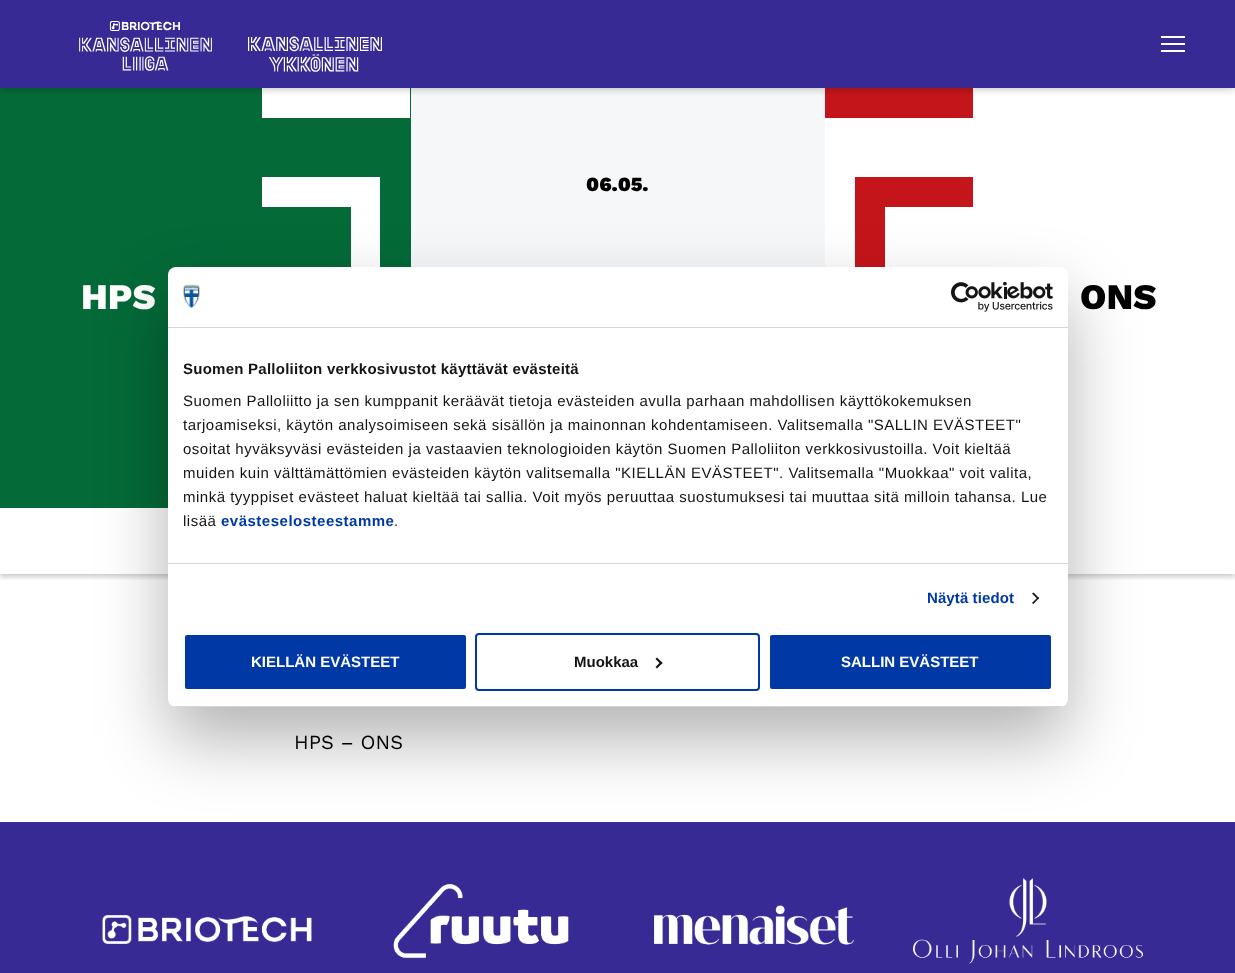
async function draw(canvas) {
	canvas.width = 1235;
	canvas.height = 973;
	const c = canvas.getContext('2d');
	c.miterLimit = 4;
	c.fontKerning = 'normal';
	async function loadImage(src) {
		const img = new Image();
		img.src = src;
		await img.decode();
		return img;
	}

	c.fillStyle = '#372a95';
	c.fillRect(0, 0, 1235, 973);
	c.fillStyle = '#fff';
	c.fillRect(0, 508, 1235, 314);
	c.fillStyle = '#f6f7f8';
	c.fillRect(411, 88, 414, 179);
	c.save();
	c.beginPath();
	c.rect(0, 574, 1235, 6);
	c.clip();
	c.fillStyle = '#00000033';
	c.filter = 'blur(2.5px)';
	c.beginPath();
	c.rect(0, 511, 1235, 66);
	c.fill();
	c.filter = 'none';
	c.restore();
	c.fillStyle = '#046a38';
	c.fillRect(0, 88, 411, 420);
	c.fillStyle = '#fff';
	c.beginPath();
	c.moveTo(262, 88);
	c.lineTo(262, 118);
	c.lineTo(410, 118);
	c.lineTo(410, 88);
	c.closePath();
	c.moveTo(396, 478);
	c.lineTo(262, 478);
	c.lineTo(262, 508);
	c.lineTo(410, 508);
	c.lineTo(410, 478);
	c.closePath();
	c.moveTo(351, 177);
	c.lineTo(262, 177);
	c.lineTo(262, 207);
	c.lineTo(351, 207);
	c.lineTo(351, 388);
	c.lineTo(262, 388);
	c.lineTo(262, 418);
	c.lineTo(380, 418);
	c.lineTo(380, 177);
	c.closePath();
	c.fill('evenodd');
	c.fillRect(825, 88, 410, 420);
	c.fillStyle = '#c4151b';
	c.beginPath();
	c.moveTo(825, 88);
	c.lineTo(825, 118);
	c.lineTo(973, 118);
	c.lineTo(973, 88);
	c.closePath();
	c.moveTo(944, 177);
	c.lineTo(855, 177);
	c.lineTo(855, 418);
	c.lineTo(973, 418);
	c.lineTo(973, 388);
	c.lineTo(885, 388);
	c.lineTo(885, 207);
	c.lineTo(973, 207);
	c.lineTo(973, 177);
	c.closePath();
	c.moveTo(825, 478);
	c.lineTo(825, 508);
	c.lineTo(973, 508);
	c.lineTo(973, 478);
	c.closePath();
	c.fill('evenodd');
	c.save();
	c.beginPath();
	c.rect(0, 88, 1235, 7);
	c.clip();
	c.fillStyle = '#0000004d';
	c.filter = 'blur(5px)';
	c.beginPath();
	c.rect(0, 0, 1235, 88);
	c.fill();
	c.filter = 'none';
	c.restore();
	c.drawImage(await loadImage('img1.png'), 79, 21, 133, 50);
	c.drawImage(await loadImage('img2.png'), 248, 36, 134, 36);
	for (const [x, y, w, h, color] of [
		[1161, 36, 24, 2, '#fff'],
		[1161, 43, 24, 2, '#fff'],
		[1161, 50, 24, 2, '#fff'],
	]) {
		c.fillStyle = color;
		c.fillRect(x, y, w, h);
	}
	c.font = '900 20px Work Sans';
	c.fillStyle = '#000';
	c.fillText('06.05.', 586, 191);
	c.font = '800 36px Work Sans';
	c.fillStyle = '#fff';
	c.fillText('HPS', 81, 309);
	c.fillStyle = '#000';
	c.fillText('ONS', 1080, 309);
	c.font = '20px Work Sans';
	c.fillText('HPS – ONS', 294, 749);
	c.fillStyle = '#0000004d';
	c.filter = 'blur(34px)';
	c.beginPath();
	c.roundRect(168, 299, 900, 440, 8);
	c.fill();
	c.filter = 'none';
	c.fillStyle = '#fff';
	c.beginPath();
	c.roundRect(168, 267, 900, 440, 8);
	c.fill();
	c.fillStyle = '#d6d6d6';
	c.fillRect(168, 327, 900, 1);
	c.drawImage(await loadImage('img3.png'), 183, 284, 17, 24);
	c.drawImage(await loadImage('img4.png'), 951, 282, 102, 30);
	c.fillRect(168, 563, 900, 1);
	c.letterSpacing = '0.25px';
	c.font = 'bold 15px Liberation Sans';
	c.fillStyle = '#141414';
	c.fillText('Suomen Palloliiton verkkosivustot käyttävät evästeitä', 183, 374);
	c.letterSpacing = '0.5px';
	c.font = '15px Liberation Sans';
	for (const [text, x, y] of [
		['Suomen Palloliitto ja sen kumppanit keräävät tietoja evästeiden avulla parhaan mahdollisen käyttökokemuksen', 183, 406],
		['tarjoamiseksi, käytön analysoimiseen sekä sisällön ja mainonnan kohdentamiseen. Valitsemalla "SALLIN EVÄSTEET"', 183, 430],
		['osoitat hyväksyväsi evästeiden ja vastaavien teknologioiden käytön Suomen Palloliiton verkkosivustoilla. Voit kieltää', 183, 454],
		['muiden kuin välttämättömien evästeiden käytön valitsemalla "KIELLÄN EVÄSTEET". Valitsemalla "Muokkaa" voit valita,', 183, 478],
		['minkä tyyppiset evästeet haluat kieltää tai sallia. Voit myös peruuttaa suostumuksesi tai muuttaa sitä milloin tahansa. Lue', 183, 502],
		['lisää', 183, 526],
	]) {
		c.fillText(text, x, y);
	}
	c.font = 'bold 15px Liberation Sans';
	c.fillStyle = '#0039a6';
	c.fillText('evästeselosteestamme', 221, 526);
	c.font = '15px Liberation Sans';
	c.fillStyle = '#141414';
	c.fillText('.', 394, 526);
	c.letterSpacing = '0.1px';
	c.font = 'bold 15px Liberation Sans';
	c.fillStyle = '#0039a6';
	c.fillText('Näytä tiedot', 927, 603);
	c.fillStyle = '#141414';
	c.beginPath();
	c.moveTo(1033.5, 592.5);
	c.lineTo(1039, 598);
	c.lineTo(1038, 599.5);
	c.lineTo(1032, 593.5);
	c.closePath();
	c.fill();
	c.beginPath();
	c.moveTo(1038, 597);
	c.lineTo(1039, 598);
	c.lineTo(1033.5, 604);
	c.lineTo(1032, 603);
	c.closePath();
	c.fill();
	c.save();
	c.beginPath();
	c.roundRect(168, 267, 900, 440, 8);
	c.clip();
	c.fillStyle = '#d6d6d6';
	c.fillRect(168, 706, 900, 1);
	c.restore();
	c.fillStyle = '#0039a6';
	c.beginPath();
	c.roundRect(184, 634, 283, 56, 3);
	c.fill();
	c.strokeStyle = '#fff';
	c.lineWidth = 2;
	c.stroke();
	c.letterSpacing = '0px';
	c.fillStyle = '#fff';
	c.fillText('KIELLÄN EVÄSTEET', 251, 667);
	c.beginPath();
	c.roundRect(476, 634, 283, 56, 3);
	c.strokeStyle = '#0039a6';
	c.stroke();
	c.fillStyle = '#141414';
	c.fillText('Muokkaa', 574, 667);
	c.beginPath();
	c.moveTo(657, 657.5);
	c.lineTo(662.5, 663);
	c.lineTo(661, 664.5);
	c.lineTo(655.5, 659);
	c.closePath();
	c.fill();
	c.beginPath();
	c.moveTo(661, 661.5);
	c.lineTo(662.5, 663);
	c.lineTo(657, 668.5);
	c.lineTo(655.5, 667);
	c.closePath();
	c.fill();
	c.fillStyle = '#0039a6';
	c.beginPath();
	c.roundRect(769, 634, 283, 56, 3);
	c.fill();
	c.strokeStyle = '#fff';
	c.stroke();
	c.fillStyle = '#fff';
	c.fillText('SALLIN EVÄSTEET', 841, 667);
	c.drawImage(await loadImage('img5.png'), 102, 915, 210, 29);
	c.drawImage(await loadImage('img6.png'), 393, 883, 176, 76);
	c.drawImage(await loadImage('img7.png'), 654, 905, 200, 40);
	c.drawImage(await loadImage('img8.png'), 913, 878, 230, 86);
}

draw(document.querySelector('canvas'));
